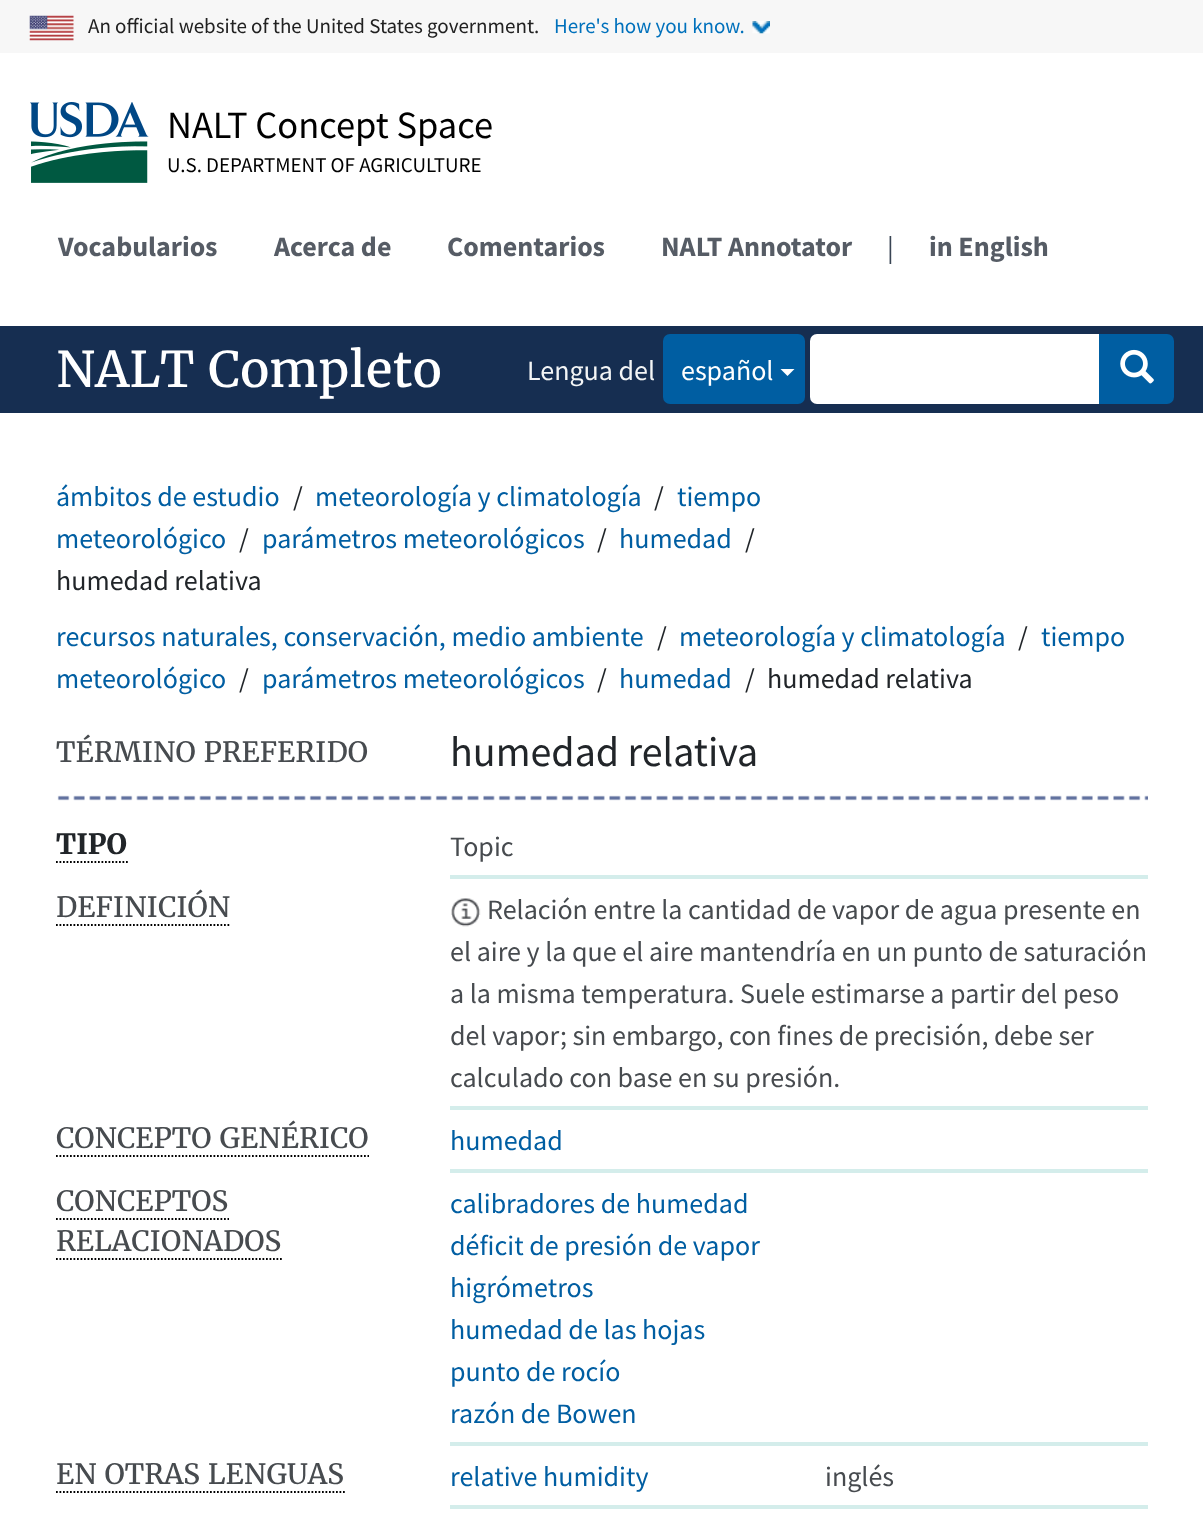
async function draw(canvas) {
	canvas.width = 1203;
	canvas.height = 1523;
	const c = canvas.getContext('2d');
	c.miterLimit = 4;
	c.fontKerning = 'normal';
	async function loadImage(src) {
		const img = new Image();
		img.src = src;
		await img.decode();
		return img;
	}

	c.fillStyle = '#fff';
	c.fillRect(0, 0, 1203, 1523);
	c.fillStyle = '#f7f7f7';
	c.fillRect(0, 0, 1203, 53);
	c.drawImage(await loadImage('img1.png'), 29, 15, 45, 26);
	c.font = '21px Source Sans Pro';
	c.fillStyle = '#212121';
	c.fillText('An official website of the United States government.', 88, 33);
	c.drawImage(await loadImage('img2.png'), 752, 21, 18, 13);
	c.fillStyle = '#0071bc';
	c.fillText('Here\'s how you know.', 554, 33);
	c.drawImage(await loadImage('img3.png'), 30, 102, 119, 81);
	c.font = '38.5px Source Sans Pro';
	c.fillStyle = '#000';
	c.fillText('NALT Concept Space', 167, 138);
	c.font = '21px Source Sans Pro';
	c.fillText('U.S. DEPARTMENT OF AGRICULTURE', 167, 172);
	c.font = 'bold 28px Source Sans Pro';
	c.fillStyle = '#565c65';
	for (const [text, x, y] of [
		['Vocabularios', 58, 256],
		['Acerca de', 274, 256],
		['Comentarios', 447, 256],
		['NALT Annotator', 661, 256],
	]) {
		c.fillText(text, x, y);
	}
	c.font = '28px Source Sans Pro';
	c.fillStyle = '#394554';
	c.fillText('|', 887, 257);
	c.font = 'bold 28px Source Sans Pro';
	c.fillStyle = '#565c65';
	c.fillText('in English', 929, 256);
	c.fillStyle = '#162e51';
	c.fillRect(0, 326, 1203, 87);
	c.font = '49px Merriweather';
	c.fillStyle = '#fff';
	c.fillText('NALT Completo', 56, 387);
	c.font = '28px Source Sans Pro';
	c.fillStyle = '#f3f5f6';
	c.fillText('Lengua del', 527, 380);
	c.fillStyle = '#005ea2';
	c.beginPath();
	c.roundRect(663, 334, 142, 70, 7);
	c.fill();
	c.fillStyle = '#fff';
	c.fillText('español', 681, 380);
	c.beginPath();
	c.moveTo(780.5, 369);
	c.lineTo(794.5, 369);
	c.lineTo(787.5, 376);
	c.closePath();
	c.fill();
	c.beginPath();
	c.roundRect(810, 334, 291, 70, [7, 0, 0, 7]);
	c.fill();
	c.fillStyle = '#005ea2';
	c.beginPath();
	c.roundRect(1099, 334, 75, 70, [0, 7, 7, 0]);
	c.fill();
	c.drawImage(await loadImage('img4.png'), 1120, 349, 34, 35);
	c.fillText('ámbitos de estudio', 56, 506);
	c.fillStyle = '#212529';
	c.fillText('/', 293, 506);
	c.fillStyle = '#005ea2';
	c.fillText('meteorología y climatología', 315, 506);
	c.fillStyle = '#212529';
	c.fillText('/', 654, 506);
	c.fillStyle = '#005ea2';
	c.fillText('tiempo', 677, 506);
	c.fillText('meteorológico', 56, 548);
	c.fillStyle = '#212529';
	c.fillText('/', 239, 548);
	c.fillStyle = '#005ea2';
	c.fillText('parámetros meteorológicos', 262, 548);
	c.fillStyle = '#212529';
	c.fillText('/', 597, 548);
	c.fillStyle = '#005ea2';
	c.fillText('humedad', 619, 548);
	c.fillStyle = '#212529';
	c.fillText('/', 745, 548);
	c.fillText('humedad relativa', 56, 590);
	c.fillStyle = '#005ea2';
	c.fillText('recursos naturales, conservación, medio ambiente', 56, 646);
	c.fillStyle = '#212529';
	c.fillText('/', 657, 646);
	c.fillStyle = '#005ea2';
	c.fillText('meteorología y climatología', 679, 646);
	c.fillStyle = '#212529';
	c.fillText('/', 1018, 646);
	c.fillStyle = '#005ea2';
	c.fillText('tiempo', 1041, 646);
	c.fillText('meteorológico', 56, 688);
	c.fillStyle = '#212529';
	c.fillText('/', 239, 688);
	c.fillStyle = '#005ea2';
	c.fillText('parámetros meteorológicos', 262, 688);
	c.fillStyle = '#212529';
	c.fillText('/', 597, 688);
	c.fillStyle = '#005ea2';
	c.fillText('humedad', 619, 688);
	c.fillStyle = '#212529';
	c.fillText('/', 745, 688);
	c.fillText('humedad relativa', 767, 688);
	c.font = '28px Merriweather';
	c.fillStyle = '#474b4f';
	c.fillText('TÉRMINO PREFERIDO', 56, 762);
	c.font = '42px Source Sans Pro';
	c.fillStyle = '#212529';
	c.fillText('humedad relativa', 450, 766);
	c.drawImage(await loadImage('img5.png'), 57, 795, 1091, 6);
	c.font = 'bold 28px Merriweather';
	c.fillText('TIPO', 56, 854);
	c.beginPath();
	c.moveTo(56, 862);
	c.lineTo(128, 862);
	c.strokeStyle = '#000';
	c.lineWidth = 1.8;
	c.setLineDash([1.75, 1.75]);
	c.stroke();
	c.fillStyle = '#d4edeb';
	c.fillRect(450, 875, 698, 4);
	c.font = '28px Source Sans Pro';
	c.fillStyle = '#474b4f';
	c.fillText('Topic', 450, 856);
	c.font = '28px Merriweather';
	c.fillText('DEFINICIÓN', 56, 917);
	c.beginPath();
	c.moveTo(56, 925);
	c.lineTo(231, 925);
	c.stroke();
	c.fillStyle = '#d4edeb';
	c.fillRect(450, 1106, 698, 4);
	c.drawImage(await loadImage('img6.png'), 451, 898, 30, 29);
	c.font = '28px Source Sans Pro';
	c.fillStyle = '#474b4f';
	for (const [text, x, y] of [
		['Relación entre la cantidad de vapor de agua presente en', 487, 919],
		['el aire y la que el aire mantendría en un punto de saturación', 450, 961],
		['a la misma temperatura. Suele estimarse a partir del peso', 450, 1003],
		['del vapor; sin embargo, con fines de precisión, debe ser', 450, 1045],
		['calculado con base en su presión.', 450, 1087],
	]) {
		c.fillText(text, x, y);
	}
	c.font = '28px Merriweather';
	c.fillText('CONCEPTO GENÉRICO', 56, 1148);
	c.beginPath();
	c.moveTo(56, 1156);
	c.lineTo(369, 1156);
	c.stroke();
	c.fillStyle = '#d4edeb';
	c.fillRect(450, 1169, 698, 4);
	c.font = '28px Source Sans Pro';
	c.fillStyle = '#005ea2';
	c.fillText('humedad', 450, 1150);
	c.font = '28px Merriweather';
	c.fillStyle = '#474b4f';
	c.fillText('CONCEPTOS', 56, 1211);
	c.beginPath();
	c.moveTo(56, 1219);
	c.lineTo(229, 1219);
	c.stroke();
	c.fillText('RELACIONADOS', 56, 1251);
	c.beginPath();
	c.moveTo(56, 1259);
	c.lineTo(282, 1259);
	c.stroke();
	c.fillStyle = '#d4edeb';
	c.fillRect(450, 1442, 698, 4);
	c.font = '28px Source Sans Pro';
	c.fillStyle = '#005ea2';
	for (const [text, x, y] of [
		['calibradores de humedad', 450, 1213],
		['déficit de presión de vapor', 450, 1255],
		['higrómetros', 450, 1297],
		['humedad de las hojas', 450, 1339],
		['punto de rocío', 450, 1381],
		['razón de Bowen', 450, 1423],
	]) {
		c.fillText(text, x, y);
	}
	c.font = '28px Merriweather';
	c.fillStyle = '#474b4f';
	c.fillText('EN OTRAS LENGUAS', 56, 1484);
	c.beginPath();
	c.moveTo(56, 1492);
	c.lineTo(345, 1492);
	c.stroke();
	c.fillStyle = '#d4edeb';
	c.fillRect(450, 1505, 698, 4);
	c.font = '28px Source Sans Pro';
	c.fillStyle = '#005ea2';
	c.fillText('relative humidity', 450, 1486);
	c.fillStyle = '#474b4f';
	c.fillText('inglés', 825, 1486);
}

draw(document.querySelector('canvas'));
